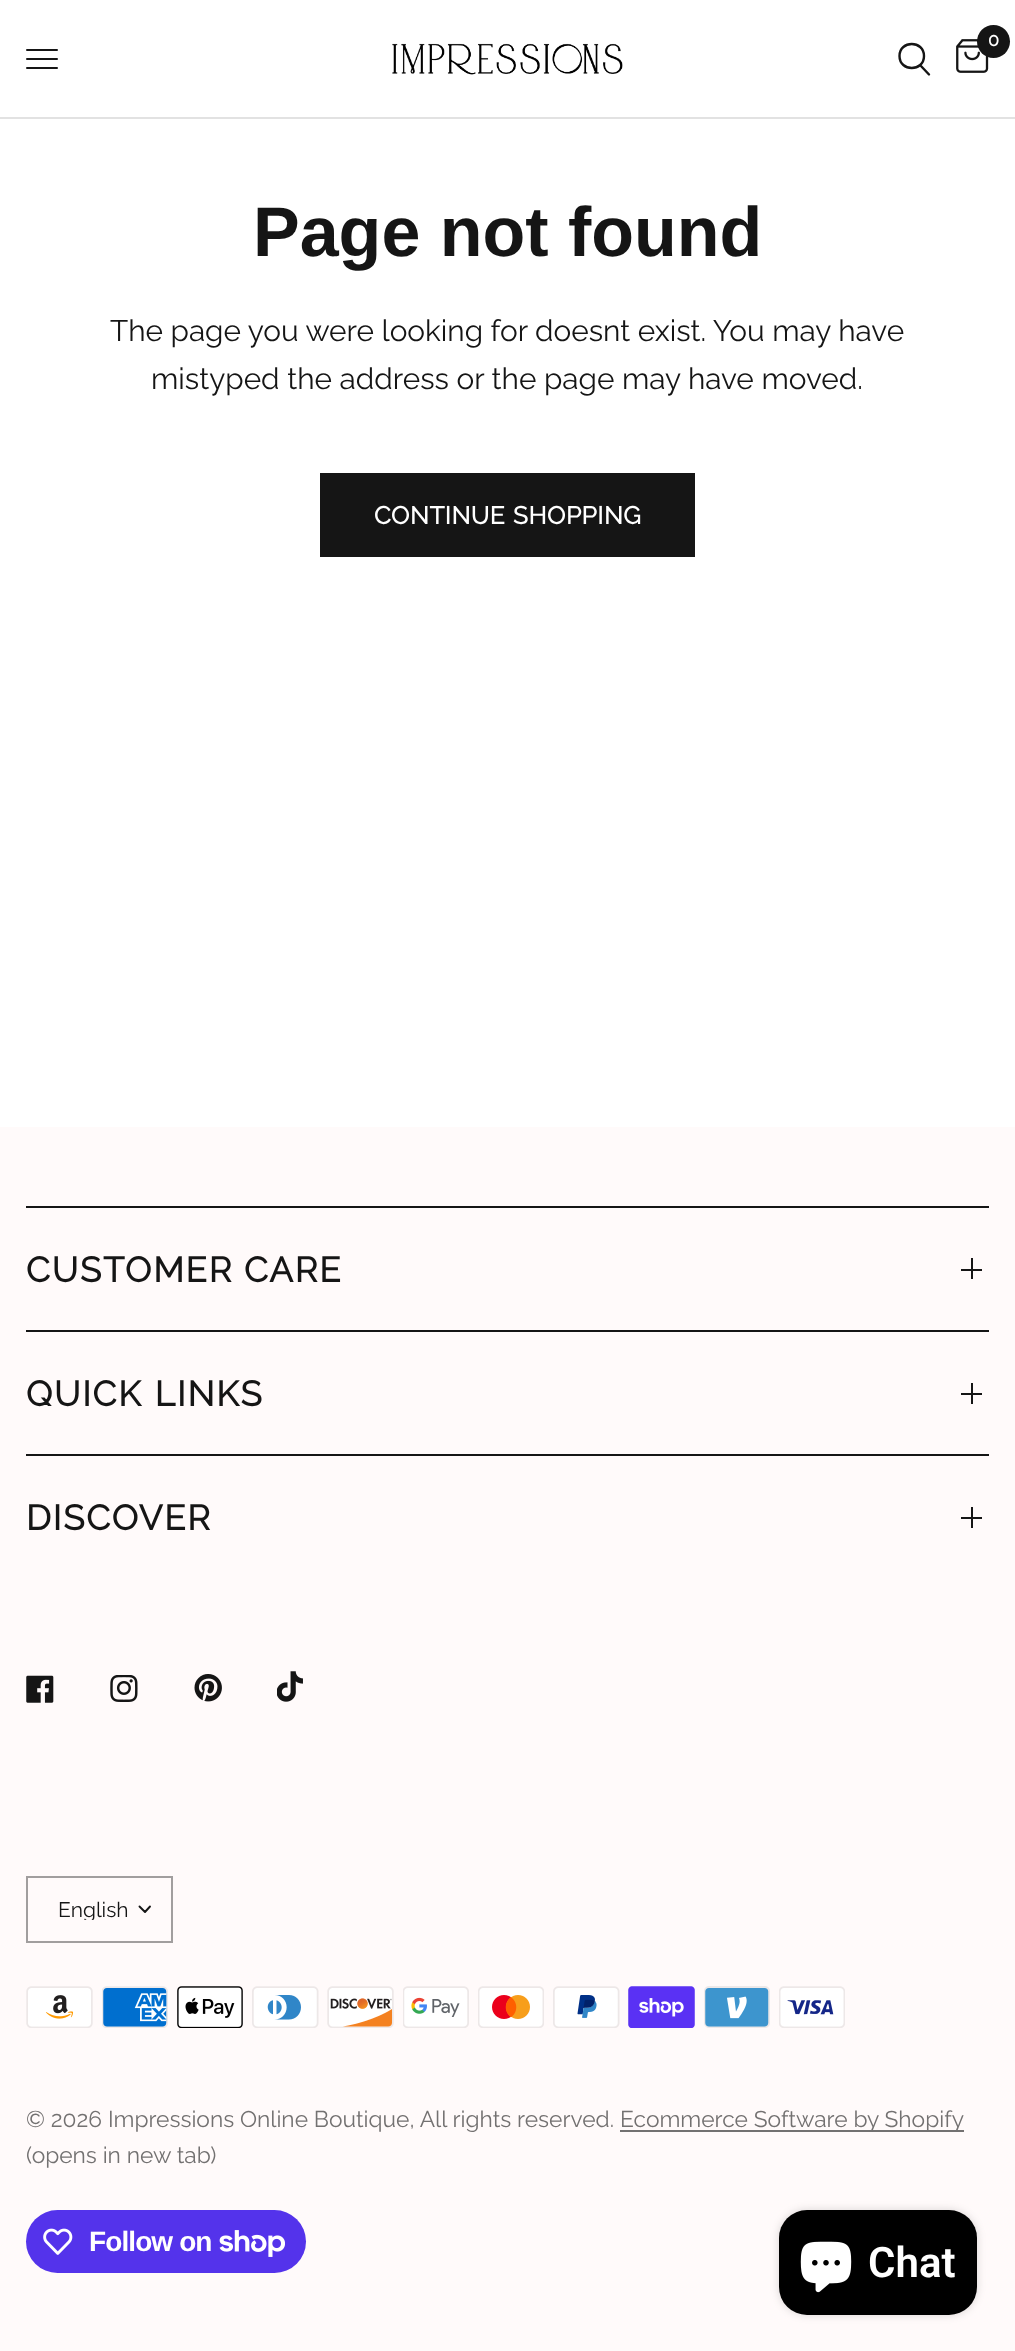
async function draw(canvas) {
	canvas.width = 1015;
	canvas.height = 2351;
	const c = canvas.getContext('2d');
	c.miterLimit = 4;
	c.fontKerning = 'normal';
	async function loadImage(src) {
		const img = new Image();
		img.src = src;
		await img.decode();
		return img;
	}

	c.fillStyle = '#fff';
	c.fillRect(0, 0, 1015, 2351);
	c.fillStyle = '#e2e2e2';
	c.fillRect(0, 117, 1015, 2);
	c.beginPath();
	c.moveTo(920.5, 65.5);
	c.lineTo(929, 74.5);
	c.moveTo(924, 56);
	c.bezierCurveTo(924, 72, 899.5, 72, 899.5, 56);
	c.bezierCurveTo(899.5, 40, 924, 40, 924, 56);
	c.closePath();
	c.strokeStyle = '#151515';
	c.lineWidth = 2.4;
	c.lineCap = 'round';
	c.lineJoin = 'round';
	c.stroke();
	c.drawImage(await loadImage('img1.png'), 956, 39, 33, 34);
	c.fillStyle = '#151515';
	c.beginPath();
	c.arc(993.5, 41.5, 16.5, 0, 2 * Math.PI);
	c.fill();
	c.font = 'bold 18px Raleway';
	c.fillStyle = '#fff';
	c.fillText('0', 988, 46);
	c.fillStyle = '#151515';
	c.beginPath();
	c.roundRect(26, 49, 32, 2, 1);
	c.fill();
	c.beginPath();
	c.roundRect(26, 58, 32, 2, 1);
	c.fill();
	c.beginPath();
	c.roundRect(26, 67, 32, 2, 1);
	c.fill();
	c.drawImage(await loadImage('img2.png'), 392, 43, 231, 32);
	c.font = 'bold 70px Liberation Sans';
	c.fillText('Page not found', 253, 256);
	c.font = '29.75px Raleway';
	c.fillText('The page you were looking for doesnt exist. You may have', 110, 341);
	c.fillText('mistyped the address or the page may have moved.', 151, 389);
	c.fillRect(320, 473, 375, 84);
	c.letterSpacing = '0.5px';
	c.wordSpacing = '1px';
	c.font = 'bold 24.5px Raleway';
	c.fillStyle = '#fff';
	c.fillText('CONTINUE SHOPPING', 374, 524);
	c.fillStyle = '#fffafa';
	c.fillRect(0, 1127, 1015, 1224);
	c.fillStyle = '#151515';
	c.fillRect(26, 1206, 963, 2);
	c.letterSpacing = '1.75px';
	c.wordSpacing = '0px';
	c.font = 'bold 35px Raleway';
	c.fillText('CUSTOMER CARE', 26, 1282);
	for (const [x, y, w, h, color] of [
		[971, 1258, 2, 21, '#151515'],
		[961, 1269, 21, 2, '#151515'],
		[26, 1330, 963, 2, '#151515'],
	]) {
		c.fillStyle = color;
		c.fillRect(x, y, w, h);
	}
	c.wordSpacing = '2px';
	c.fillText('QUICK LINKS', 26, 1406);
	for (const [x, y, w, h, color] of [
		[971, 1383, 2, 21, '#151515'],
		[961, 1393, 21, 2, '#151515'],
		[26, 1454, 963, 2, '#151515'],
	]) {
		c.fillStyle = color;
		c.fillRect(x, y, w, h);
	}
	c.wordSpacing = '0px';
	c.fillText('DISCOVER', 26, 1530);
	c.fillRect(971, 1507, 2, 21);
	c.fillRect(961, 1517, 21, 2);
	c.drawImage(await loadImage('img3.png'), 26, 1675, 28, 28);
	c.drawImage(await loadImage('img4.png'), 110, 1675, 28, 27);
	c.drawImage(await loadImage('img5.png'), 194, 1674, 28, 28);
	c.drawImage(await loadImage('img6.png'), 277, 1671, 26, 31);
	c.strokeStyle = '#a19e9e';
	c.lineWidth = 2;
	c.lineJoin = 'miter';
	c.strokeRect(27, 1877, 145, 65);
	c.save();
	c.beginPath();
	c.rect(58, 1899, 72, 21);
	c.clip();
	c.letterSpacing = '0px';
	c.font = '21px Raleway';
	c.fillText('English', 58, 1917);
	c.restore();
	c.beginPath();
	c.moveTo(150, 1906.5);
	c.lineTo(145, 1912);
	c.lineTo(139.5, 1906.5);
	c.strokeStyle = '#151515';
	c.lineWidth = 1.9;
	c.lineJoin = 'round';
	c.stroke();
	c.drawImage(await loadImage('img7.png'), 26, 1986, 67, 42);
	c.drawImage(await loadImage('img8.png'), 102, 1986, 66, 42);
	c.drawImage(await loadImage('img9.png'), 177, 1986, 66, 42);
	c.drawImage(await loadImage('img10.png'), 252, 1986, 67, 42);
	c.drawImage(await loadImage('img11.png'), 327, 1986, 67, 42);
	c.drawImage(await loadImage('img12.png'), 403, 1986, 66, 42);
	c.drawImage(await loadImage('img13.png'), 478, 1986, 66, 42);
	c.drawImage(await loadImage('img14.png'), 553, 1986, 67, 42);
	c.drawImage(await loadImage('img15.png'), 628, 1986, 67, 42);
	c.drawImage(await loadImage('img16.png'), 704, 1986, 66, 42);
	c.drawImage(await loadImage('img17.png'), 779, 1986, 66, 42);
	c.letterSpacing = '0px';
	c.font = '22.75px Raleway';
	c.fillStyle = '#737171';
	c.fillText('© 2026 Impressions Online Boutique, All rights reserved.', 26, 2127);
	c.fillRect(620, 2130, 344, 2);
	c.fillText('Ecommerce Software by Shopify', 620, 2127);
	c.fillText('(opens in new tab)', 26, 2163);
	c.fillStyle = '#5433eb';
	c.beginPath();
	c.roundRect(26, 2210, 280, 63, 31.5);
	c.fill();
	c.drawImage(await loadImage('img18.png'), 43, 2228, 30, 27);
	c.letterSpacing = '-0.9px';
	c.font = 'bold 28px Liberation Sans';
	c.fillStyle = '#fff';
	c.fillText('Follow on', 89, 2251);
	c.drawImage(await loadImage('img19.png'), 219, 2230, 66, 27);
	c.fillStyle = '#00000026';
	c.filter = 'blur(4.5px)';
	c.beginPath();
	c.roundRect(779, 2210, 198, 105, 28);
	c.fill();
	c.filter = 'none';
	c.fillStyle = '#000';
	c.beginPath();
	c.roundRect(779, 2210, 198, 105, 28);
	c.fill();
	c.drawImage(await loadImage('img20.png'), 800, 2241, 52, 52);
	c.letterSpacing = '0px';
	c.font = '600 42px Roboto';
	c.fillStyle = '#fff';
	c.fillText('Chat', 868, 2277);
}

draw(document.querySelector('canvas'));
